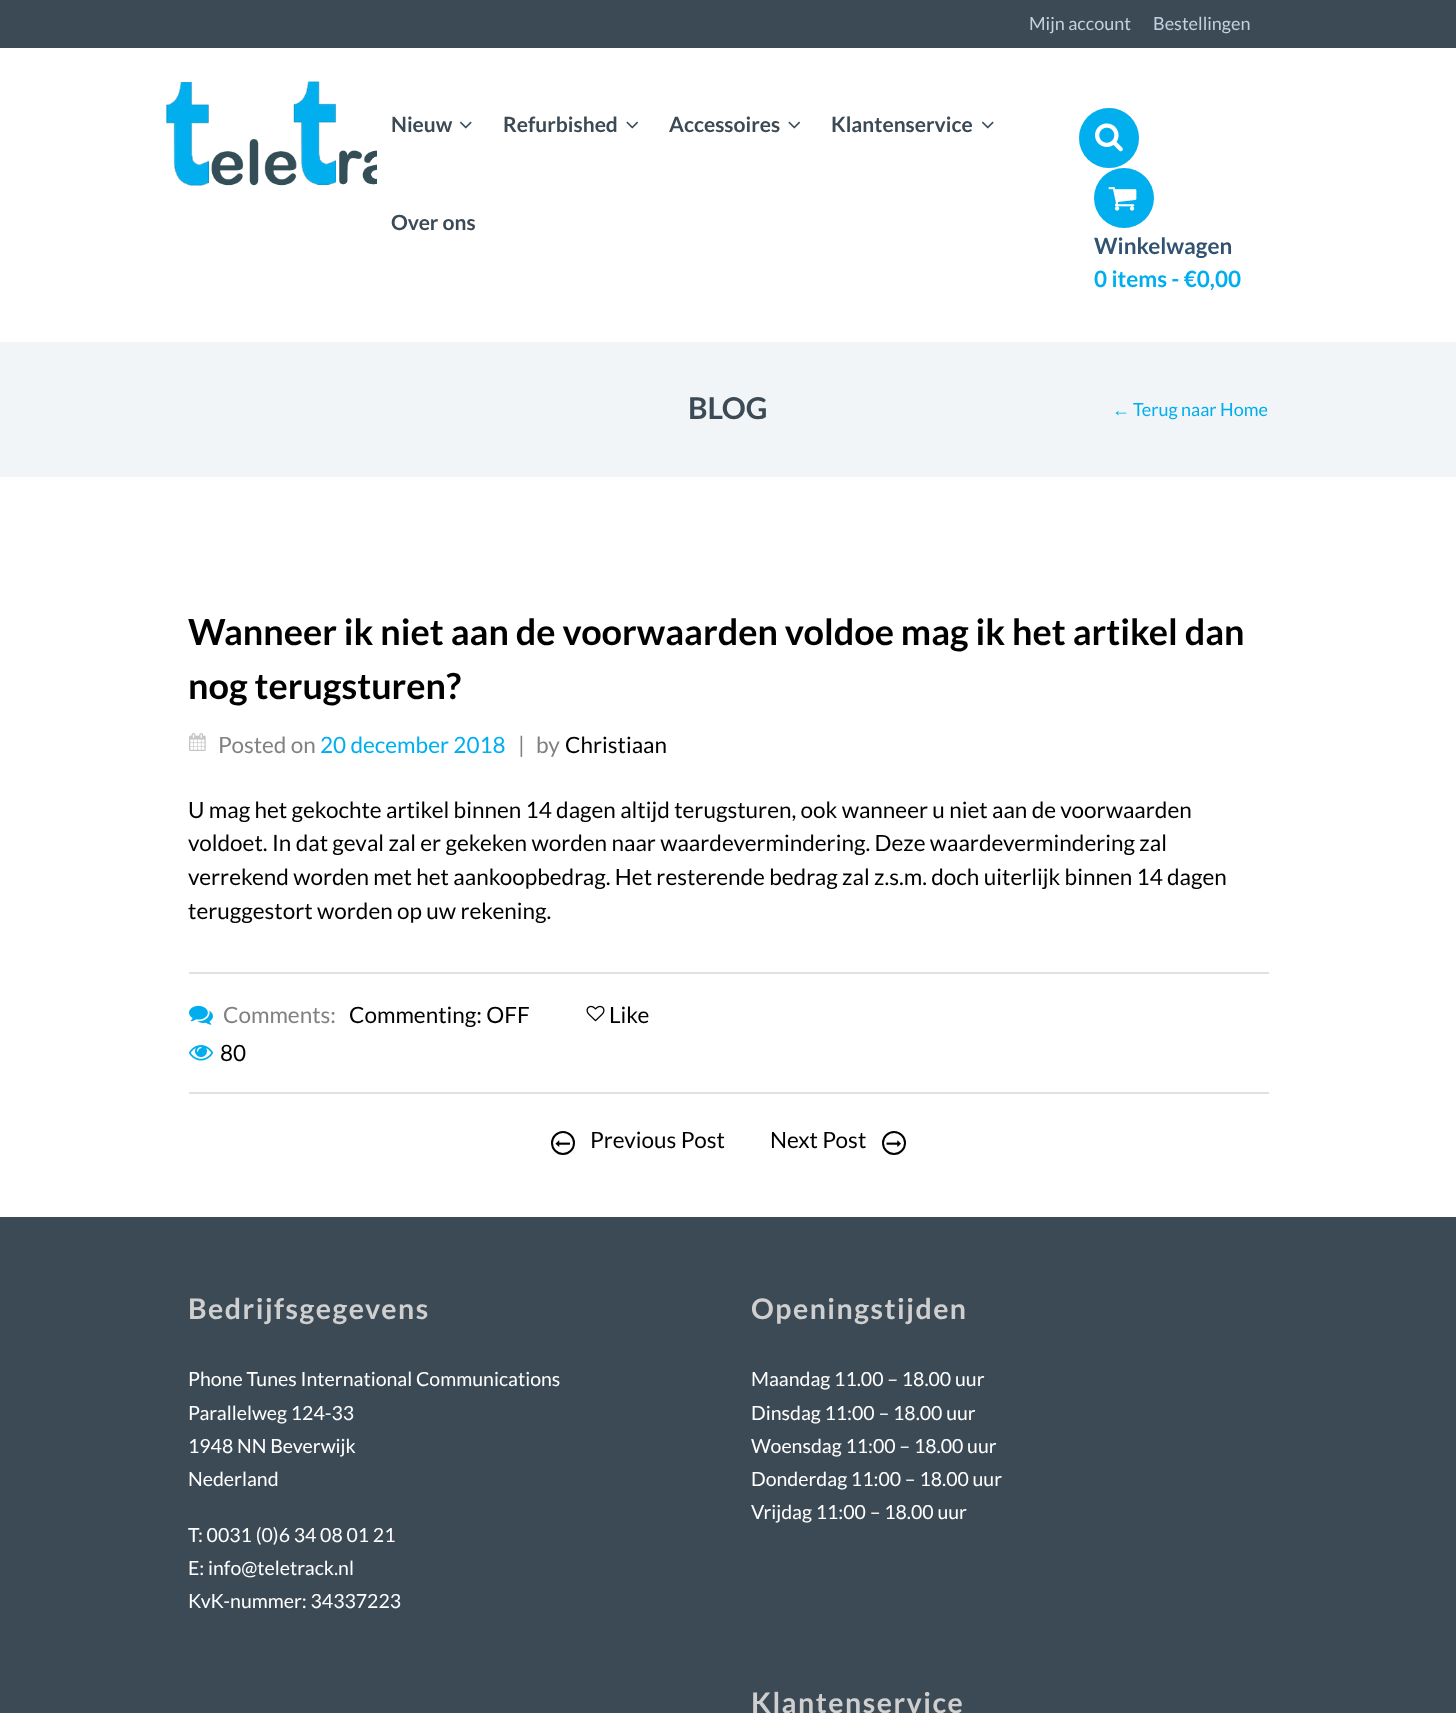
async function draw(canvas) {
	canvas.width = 1456;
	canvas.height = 1713;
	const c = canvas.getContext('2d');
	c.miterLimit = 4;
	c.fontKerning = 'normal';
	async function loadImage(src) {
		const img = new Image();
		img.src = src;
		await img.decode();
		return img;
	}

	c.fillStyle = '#fff';
	c.fillRect(0, 0, 1456, 1713);
	c.fillStyle = '#3c4a55';
	c.fillRect(0, 0, 1456, 48);
	c.font = '18px Lato';
	c.fillStyle = '#c4d0dd';
	c.fillText('Mijn account', 1029, 30);
	c.fillText('Bestellingen', 1153, 30);
	c.drawImage(await loadImage('img1.png'), 166, 81, 211, 105);
	c.font = 'bold 21px Lato';
	c.fillStyle = '#3c4a55';
	c.fillText('Nieuw', 391, 132);
	c.drawImage(await loadImage('img2.png'), 459, 121, 13, 8);
	c.fillText('Refurbished', 503, 132);
	c.drawImage(await loadImage('img3.png'), 626, 121, 13, 8);
	c.fillText('Accessoires', 669, 132);
	c.drawImage(await loadImage('img3.png'), 788, 121, 13, 8);
	c.fillText('Klantenservice', 831, 132);
	c.drawImage(await loadImage('img2.png'), 981, 121, 13, 8);
	c.fillText('Over ons', 391, 230);
	c.beginPath();
	c.arc(1109, 138, 29, 0, 2 * Math.PI);
	c.strokeStyle = '#e1e1e1';
	c.lineWidth = 2;
	c.stroke();
	c.fillStyle = '#01afef';
	c.beginPath();
	c.arc(1109, 138, 30, 0, 2 * Math.PI);
	c.fill();
	c.drawImage(await loadImage('img4.png'), 1095, 123, 28, 29);
	c.beginPath();
	c.arc(1124, 198, 30, 0, 2 * Math.PI);
	c.fill();
	c.drawImage(await loadImage('img5.png'), 1108, 187, 29, 24);
	c.font = 'bold 22.5px Lato';
	c.fillStyle = '#325271';
	c.fillText('Winkelwagen', 1094, 254);
	c.fillStyle = '#00aeef';
	c.fillText('0 items - €0,00', 1094, 287);
	c.fillStyle = '#f2f5f8';
	c.fillRect(0, 342, 1456, 135);
	c.font = 'bold 30px Lato';
	c.fillStyle = '#3c4a55';
	c.fillText('BLOG', 688, 419);
	c.font = '18px Liberation Sans';
	c.fillStyle = '#00aeef';
	c.fillText('←', 1112, 416);
	c.font = '18px Lato';
	c.fillText('Terug naar Home', 1133, 416);
	c.font = 'bold 36px Lato';
	c.fillStyle = '#000';
	c.fillText('Wanneer ik niet aan de voorwaarden voldoe mag ik het artikel dan', 188, 645);
	c.fillText('nog terugsturen?', 188, 699);
	c.drawImage(await loadImage('img6.png'), 189, 733, 17, 18);
	c.font = '22.5px Lato';
	c.fillStyle = '#818181';
	c.fillText('Posted on', 218, 753);
	c.fillStyle = '#00aeef';
	c.fillText('20 december 2018', 320, 753);
	c.fillStyle = '#818181';
	c.fillText('|', 518, 753);
	c.fillText('by', 536, 753);
	c.fillStyle = '#000';
	for (const [text, x, y] of [
		['Christiaan', 565, 753],
		['U mag het gekochte artikel binnen 14 dagen altijd terugsturen, ook wanneer u niet aan de voorwaarden', 188, 818],
		['voldoet. In dat geval zal er gekeken worden naar waardevermindering. Deze waardevermindering zal', 188, 851],
		['verrekend worden met het aankoopbedrag. Het resterende bedrag zal z.s.m. doch uiterlijk binnen 14 dagen', 188, 885],
		['teruggestort worden op uw rekening.', 188, 919],
	]) {
		c.fillText(text, x, y);
	}
	c.fillStyle = '#e1e1e1';
	c.fillRect(189, 972, 1080, 2);
	c.fillRect(189, 1092, 1080, 2);
	c.drawImage(await loadImage('img7.png'), 189, 1005, 24, 20);
	c.fillStyle = '#818181';
	c.fillText('Comments:', 223, 1023);
	c.fillStyle = '#000';
	c.fillText('Commenting: OFF', 349, 1023);
	c.drawImage(await loadImage('img8.png'), 586, 1005, 19, 17);
	c.fillText('Like', 609, 1023);
	c.drawImage(await loadImage('img9.png'), 189, 1045, 24, 16);
	c.fillText('80', 220, 1061);
	c.beginPath();
	c.arc(563, 1143, 11, 0, 2 * Math.PI);
	c.strokeStyle = '#000';
	c.stroke();
	c.drawImage(await loadImage('img10.png'), 555, 1140, 15, 7);
	c.fillText('Previous Post', 590, 1148);
	c.fillText('Next Post', 770, 1148);
	c.beginPath();
	c.arc(894, 1143, 11, 0, 2 * Math.PI);
	c.stroke();
	c.drawImage(await loadImage('img11.png'), 886, 1140, 15, 7);
	c.fillStyle = '#3c4a55';
	c.fillRect(0, 1217, 1456, 496);
	c.letterSpacing = '1.5px';
	c.font = 'bold 28.5px Lato';
	c.fillStyle = '#cfcfcf';
	c.fillText('Bedrijfsgegevens', 188, 1319);
	c.letterSpacing = '0px';
	c.font = '19.5px Lato';
	c.fillStyle = '#fff';
	for (const [text, x, y] of [
		['Phone Tunes International Communications', 188, 1386],
		['Parallelweg 124-33', 188, 1420],
		['1948 NN Beverwijk', 188, 1453],
		['Nederland', 188, 1486],
		['T: 0031 (0)6 34 08 01 21', 188, 1542],
		['E: info@teletrack.nl', 188, 1575],
		['KvK-nummer: 34337223', 188, 1608],
	]) {
		c.fillText(text, x, y);
	}
	c.letterSpacing = '1.5px';
	c.font = 'bold 28.5px Lato';
	c.fillStyle = '#cfcfcf';
	c.fillText('Openingstijden', 751, 1319);
	c.letterSpacing = '0px';
	c.font = '19.5px Lato';
	c.fillStyle = '#fff';
	for (const [text, x, y] of [
		['Maandag 11.00 – 18.00 uur', 751, 1386],
		['Dinsdag 11:00 – 18.00 uur', 751, 1420],
		['Woensdag 11:00 – 18.00 uur', 751, 1453],
		['Donderdag 11:00 – 18.00 uur', 751, 1486],
		['Vrijdag 11:00 – 18.00 uur', 751, 1519],
	]) {
		c.fillText(text, x, y);
	}
	c.letterSpacing = '1.5px';
	c.font = 'bold 28.5px Lato';
	c.fillStyle = '#cfcfcf';
	c.fillText('Klantenservice', 751, 1713);
}

draw(document.querySelector('canvas'));
